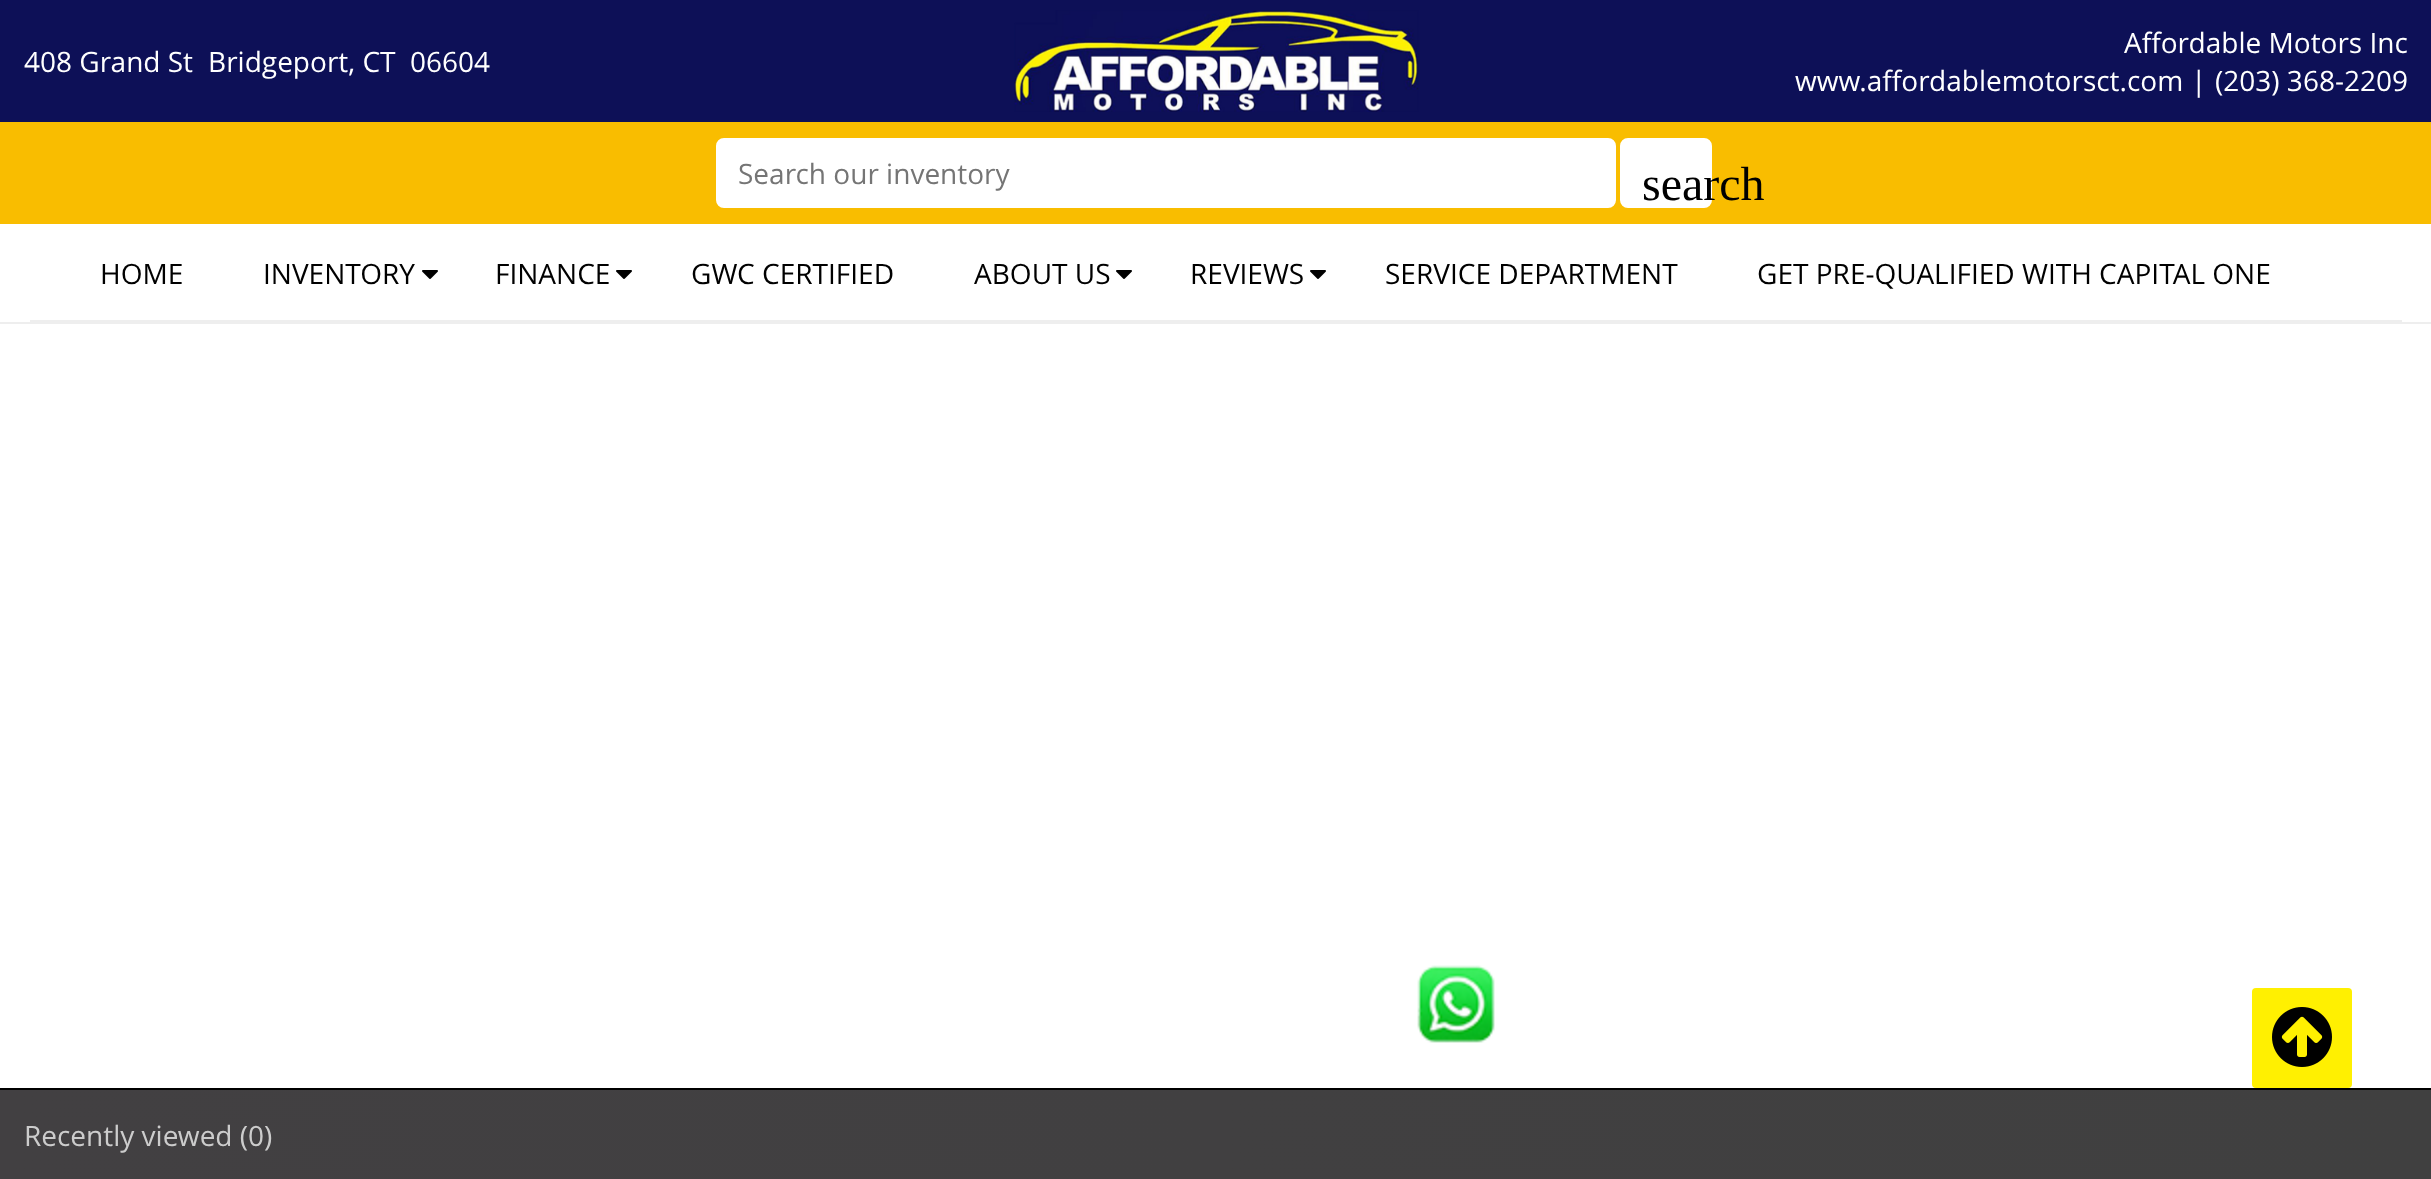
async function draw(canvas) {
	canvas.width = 2431;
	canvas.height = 1179;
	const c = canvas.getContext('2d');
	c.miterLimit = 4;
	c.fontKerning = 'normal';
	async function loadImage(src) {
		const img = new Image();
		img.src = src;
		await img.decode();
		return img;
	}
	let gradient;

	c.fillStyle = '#fff';
	c.fillRect(0, 0, 2431, 1179);
	c.fillStyle = '#0d1057';
	c.fillRect(0, 0, 2431, 122);
	c.font = '28px Open Sans';
	c.fillStyle = '#fff';
	for (const [text, x, y] of [
		['408 Grand St', 24, 72],
		['Bridgeport, CT', 208, 72],
		['06604', 410, 72],
	]) {
		c.fillText(text, x, y);
	}
	c.drawImage(await loadImage('img1.png'), 1014, 10, 405, 102);
	for (const [text, x, y] of [
		['Affordable Motors Inc', 2124, 53],
		['www.affordablemotorsct.com', 1795, 91],
		['|', 2191, 91],
		['(203) 368-2209', 2215, 91],
	]) {
		c.fillText(text, x, y);
	}
	c.fillStyle = '#f9bd00';
	c.fillRect(0, 122, 2431, 102);
	c.fillStyle = '#fff';
	c.beginPath();
	c.roundRect(717, 139, 898, 68, 7);
	c.fill();
	c.strokeStyle = '#fff';
	c.lineWidth = 2;
	c.stroke();
	c.fillStyle = '#757575';
	c.fillText('Search our inventory', 738, 184);
	c.fillStyle = '#fff';
	c.beginPath();
	c.roundRect(1621, 139, 90, 68, 7);
	c.fill();
	c.stroke();
	c.font = '48px Liberation Serif';
	c.fillStyle = '#000';
	c.fillText('search', 1642, 200);
	c.fillStyle = '#eee';
	c.fillRect(0, 322, 2431, 2);
	c.fillRect(30, 320, 2372, 2);
	c.font = '28px Open Sans';
	c.fillStyle = '#000';
	c.fillText('HOME', 100, 284);
	c.fillText('INVENTORY', 263, 284);
	c.drawImage(await loadImage('img2.png'), 422, 270, 16, 9);
	c.fillText('FINANCE', 495, 284);
	c.drawImage(await loadImage('img2.png'), 616, 270, 16, 9);
	c.fillText('GWC CERTIFIED', 691, 284);
	c.fillText('ABOUT US', 974, 284);
	c.drawImage(await loadImage('img2.png'), 1116, 270, 16, 9);
	c.fillText('REVIEWS', 1190, 284);
	c.drawImage(await loadImage('img2.png'), 1310, 270, 16, 9);
	c.fillText('SERVICE DEPARTMENT', 1385, 284);
	c.fillText('GET PRE-QUALIFIED WITH CAPITAL ONE', 1757, 284);
	c.drawImage(await loadImage('img3.png'), 1417, 965, 78, 78);
	c.fillStyle = '#fff001';
	c.beginPath();
	c.roundRect(2252, 988, 100, 100, 4);
	c.fill();
	c.drawImage(await loadImage('img4.png'), 2272, 1007, 60, 60);
	gradient = c.createLinearGradient(0, 1135, 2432, 1135);
	gradient.addColorStop(0, '#424042');
	gradient.addColorStop(1, '#404040');
	c.fillStyle = gradient;
	c.fillRect(0, 1090, 2431, 89);
	c.fillStyle = '#000';
	c.fillRect(0, 1088, 2431, 2);
	c.fillStyle = '#ccc';
	c.fillText('Recently viewed (0)', 24, 1146);
}

draw(document.querySelector('canvas'));
